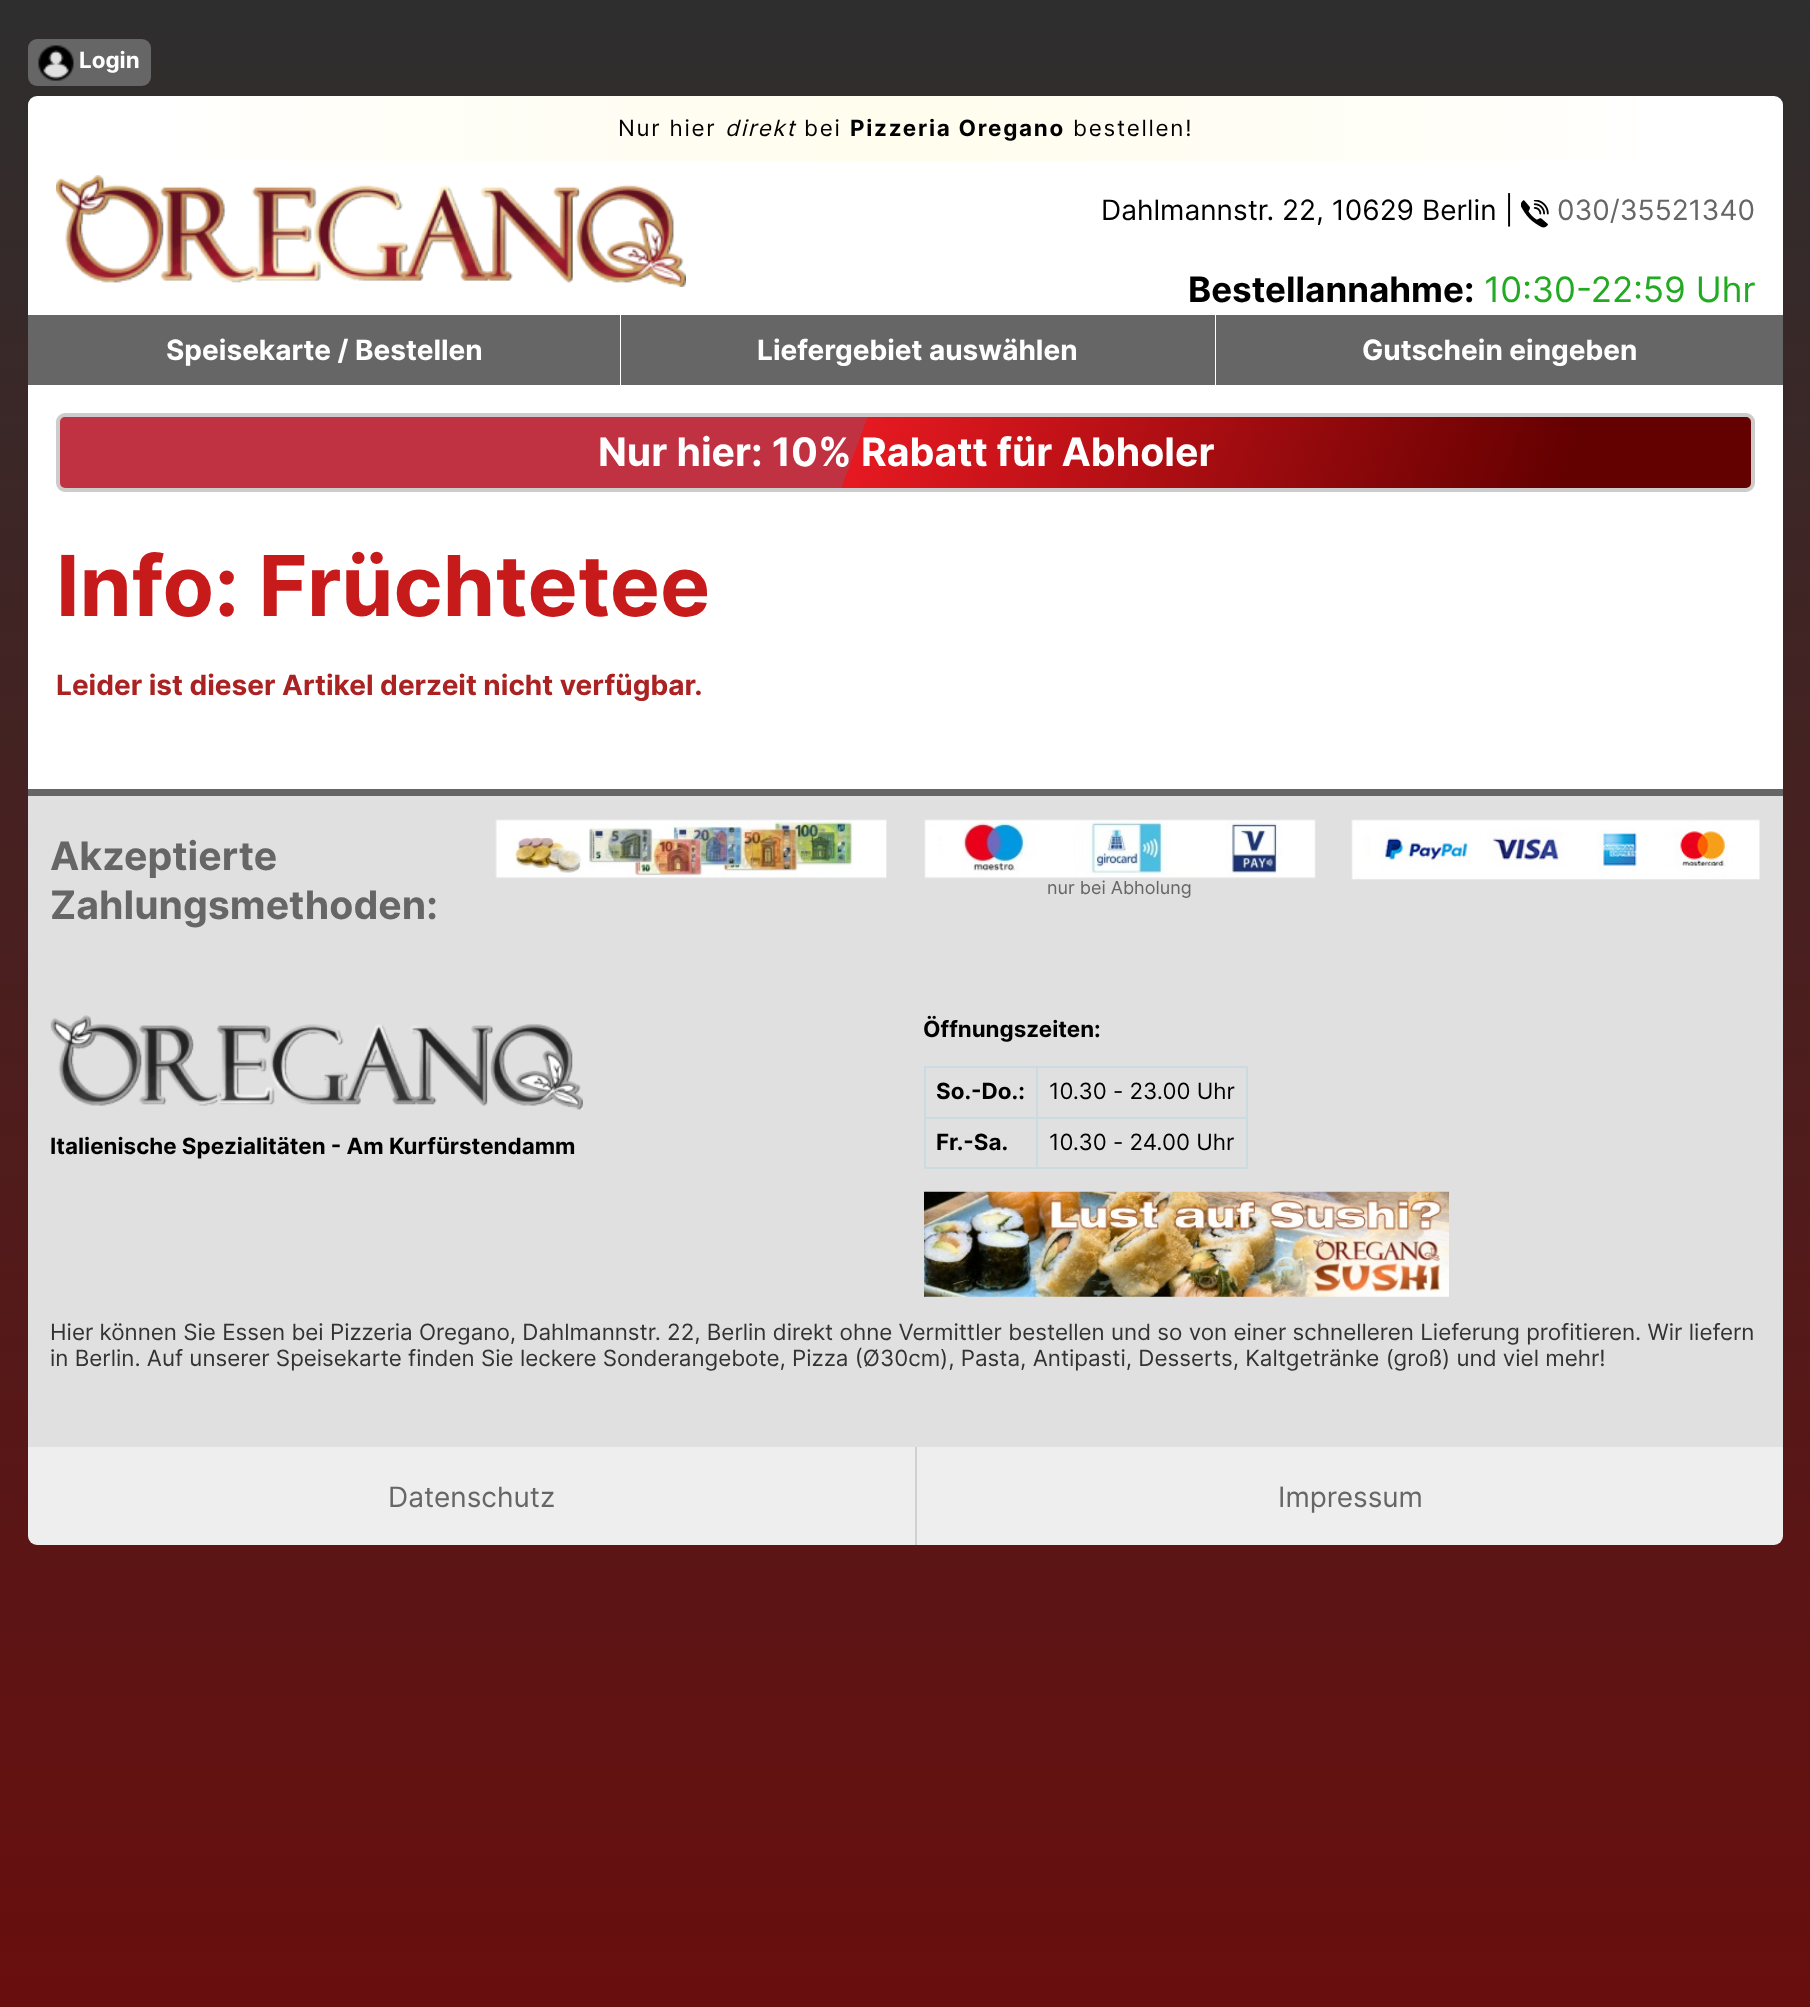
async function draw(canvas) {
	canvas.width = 1810;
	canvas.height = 2007;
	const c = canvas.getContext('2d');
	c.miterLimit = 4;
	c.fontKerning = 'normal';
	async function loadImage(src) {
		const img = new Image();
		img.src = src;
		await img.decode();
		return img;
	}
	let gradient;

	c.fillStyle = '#fff';
	c.fillRect(0, 0, 1810, 2007);
	gradient = c.createLinearGradient(906, 0, 906, 2007);
	gradient.addColorStop(0, '#2e2e2e');
	gradient.addColorStop(1, '#690e0e');
	c.fillStyle = gradient;
	c.fillRect(0, 0, 1810, 2007);
	c.fillStyle = '#666';
	c.beginPath();
	c.roundRect(28, 39, 123, 47, 9);
	c.fill();
	c.drawImage(await loadImage('img1.png'), 38, 45, 36, 36);
	c.font = 'bold 22.4px Inter';
	c.fillStyle = '#fff';
	c.fillText('Login', 79, 68);
	c.beginPath();
	c.roundRect(28, 96, 1755, 219, [9, 9, 0, 0]);
	c.fill();
	gradient = c.createLinearGradient(56, 129, 1755, 129);
	gradient.addColorStop(0, '#fff');
	gradient.addColorStop(0.5, '#fffded');
	gradient.addColorStop(1, '#fff');
	c.fillStyle = gradient;
	c.fillRect(174, 96, 1463, 65);
	c.letterSpacing = '1.75px';
	c.font = '22.4px Inter';
	c.fillStyle = '#000';
	c.fillText('Nur hier', 618, 136);
	c.font = 'italic 22.4px Inter';
	c.fillText('direkt', 725, 136);
	c.font = '22.4px Inter';
	c.fillText('bei', 804, 136);
	c.font = 'bold 22.4px Inter';
	c.fillText('Pizzeria Oregano', 850, 136);
	c.font = '22.4px Inter';
	c.fillText('bestellen!', 1073, 136);
	c.drawImage(await loadImage('img2.png'), 56, 175, 630, 112);
	c.letterSpacing = '0px';
	c.font = '28px Inter';
	c.fillText('Dahlmannstr. 22, 10629 Berlin |', 1101, 220);
	c.drawImage(await loadImage('img3.png'), 1521, 200, 28, 28);
	c.fillStyle = '#666';
	c.fillText('030/35521340', 1557, 220);
	c.font = 'bold 35px Inter';
	c.fillStyle = '#000';
	c.fillText('Bestellannahme:', 1188, 302);
	c.font = '35px Inter';
	c.fillStyle = '#2a2';
	c.fillText('10:30-22:59 Uhr', 1484, 302);
	c.fillStyle = '#fff';
	c.fillRect(620, 315, 596, 70);
	c.fillStyle = '#666';
	c.fillRect(28, 315, 592, 70);
	c.font = 'bold 28px Inter';
	c.fillStyle = '#fff';
	c.fillText('Speisekarte / Bestellen', 166, 360);
	c.fillStyle = '#666';
	c.fillRect(621, 315, 594, 70);
	c.fillStyle = '#fff';
	c.fillText('Liefergebiet auswählen', 757, 360);
	c.fillStyle = '#666';
	c.fillRect(1216, 315, 567, 70);
	c.fillStyle = '#fff';
	c.fillText('Gutschein eingeben', 1362, 360);
	c.fillRect(28, 385, 1755, 404);
	c.fillStyle = '#666';
	c.fillRect(28, 789, 1755, 7);
	gradient = c.createLinearGradient(150, 173, 1662, 732);
	gradient.addColorStop(0.47, '#c03142');
	gradient.addColorStop(0.47, '#e61921');
	gradient.addColorStop(0.89, '#630000');
	c.fillStyle = gradient;
	c.fillRect(60, 417, 1691, 71);
	c.beginPath();
	c.roundRect(58, 415, 1695, 75, 7);
	c.strokeStyle = '#ccc';
	c.lineWidth = 4;
	c.stroke();
	c.font = 'bold 39.25px Inter';
	c.fillStyle = '#fff';
	c.fillText('Nur hier: 10% Rabatt für Abholer', 598, 466);
	c.font = 'bold 84px Inter';
	c.fillStyle = '#c71a1a';
	c.fillText('Info: Früchtetee', 56, 616);
	c.font = 'bold 28px Inter';
	c.fillStyle = '#a22';
	c.fillText('Leider ist dieser Artikel derzeit nicht verfügbar.', 56, 695);
	c.fillStyle = '#e0e0e0';
	c.fillRect(28, 796, 1755, 651);
	c.font = 'bold 39.25px Inter';
	c.fillStyle = '#666';
	c.fillText('Akzeptierte', 50, 870);
	c.fillText('Zahlungsmethoden:', 50, 919);
	c.drawImage(await loadImage('img4.png'), 495, 819, 392, 60);
	c.drawImage(await loadImage('img5.png'), 924, 819, 392, 60);
	c.font = '18px Inter';
	c.fillText('nur bei Abholung', 1047, 894);
	c.drawImage(await loadImage('img6.png'), 1351, 819, 409, 61);
	c.drawImage(await loadImage('img7.png'), 50, 1015, 533, 95);
	c.font = 'bold 22.4px Inter';
	c.fillStyle = '#000';
	c.fillText('Italienische Spezialitäten - Am Kurfürstendamm', 50, 1154);
	c.fillText('Öffnungszeiten:', 923, 1037);
	for (const [x, y, w, h, color] of [
		[924, 1066, 324, 2, '#ccdae1'],
		[1246, 1066, 2, 103, '#ccdae1'],
		[924, 1167, 324, 2, '#ccdae1'],
		[924, 1066, 2, 103, '#ccdae1'],
	]) {
		c.fillStyle = color;
		c.fillRect(x, y, w, h);
	}
	c.fillStyle = '#000';
	c.fillText('So.-Do.:', 936, 1099);
	c.font = '22.4px Inter';
	c.fillText('10.30 - 23.00 Uhr', 1049, 1099);
	c.fillStyle = '#ccdae1';
	c.fillRect(924, 1117, 324, 2);
	c.font = 'bold 22.4px Inter';
	c.fillStyle = '#000';
	c.fillText('Fr.-Sa.', 936, 1150);
	c.fillStyle = '#ccdae1';
	c.fillRect(1036, 1066, 2, 103);
	c.font = '22.4px Inter';
	c.fillStyle = '#000';
	c.fillText('10.30 - 24.00 Uhr', 1049, 1150);
	c.drawImage(await loadImage('img8.png'), 924, 1191, 525, 106);
	c.fillStyle = '#333';
	c.fillText('Hier können Sie Essen bei Pizzeria Oregano, Dahlmannstr. 22, Berlin direkt ohne Vermittler bestellen und so von einer schnelleren Lieferung profitieren. Wir liefern', 50, 1340);
	c.fillText('in Berlin. Auf unserer Speisekarte finden Sie leckere Sonderangebote, Pizza (Ø30cm), Pasta, Antipasti, Desserts, Kaltgetränke (groß) und viel mehr!', 50, 1366);
	c.fillStyle = '#eee';
	c.beginPath();
	c.roundRect(28, 1447, 1755, 98, [0, 0, 9, 9]);
	c.fill();
	c.font = '28px Inter';
	c.fillStyle = '#666';
	c.fillText('Datenschutz', 388, 1507);
	c.fillStyle = '#d0d0d0';
	c.fillRect(915, 1447, 2, 98);
	c.fillStyle = '#666';
	c.fillText('Impressum', 1278, 1507);
}

draw(document.querySelector('canvas'));
